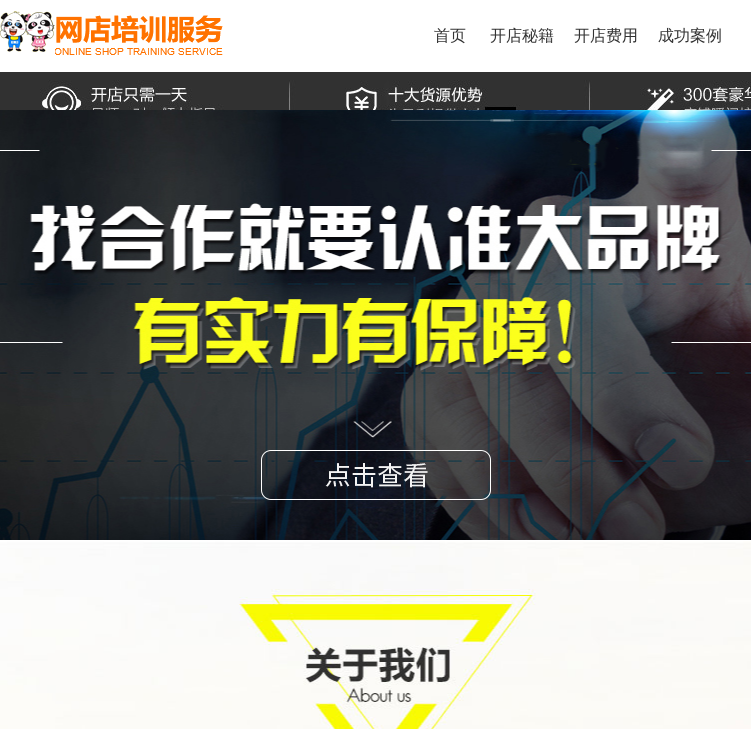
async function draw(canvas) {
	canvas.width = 751;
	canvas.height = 729;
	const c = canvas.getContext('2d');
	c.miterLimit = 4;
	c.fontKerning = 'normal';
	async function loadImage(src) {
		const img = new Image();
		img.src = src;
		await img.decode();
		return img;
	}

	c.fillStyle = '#fff';
	c.fillRect(0, 0, 751, 729);
	c.drawImage(await loadImage('img1.png'), 0, 11, 223, 44);
	c.font = '500 16px WenQuanYi Zen Hei';
	c.fillStyle = '#333';
	for (const [text, x, y] of [
		['首页', 434, 41],
		['开店秘籍', 490, 41],
		['开店费用', 574, 41],
		['成功案例', 658, 41],
	]) {
		c.fillText(text, x, y);
	}
	c.fillStyle = '#313131';
	c.fillRect(0, 72, 751, 38);
	c.drawImage(await loadImage('img2.png'), 40, 80, 711, 30);
	c.drawImage(await loadImage('img3.png'), 0, 110, 751, 430);
	c.drawImage(await loadImage('img4.png'), 261, 450, 230, 50);
	c.drawImage(await loadImage('img5.png'), 0, 541, 751, 188);
}

draw(document.querySelector('canvas'));
